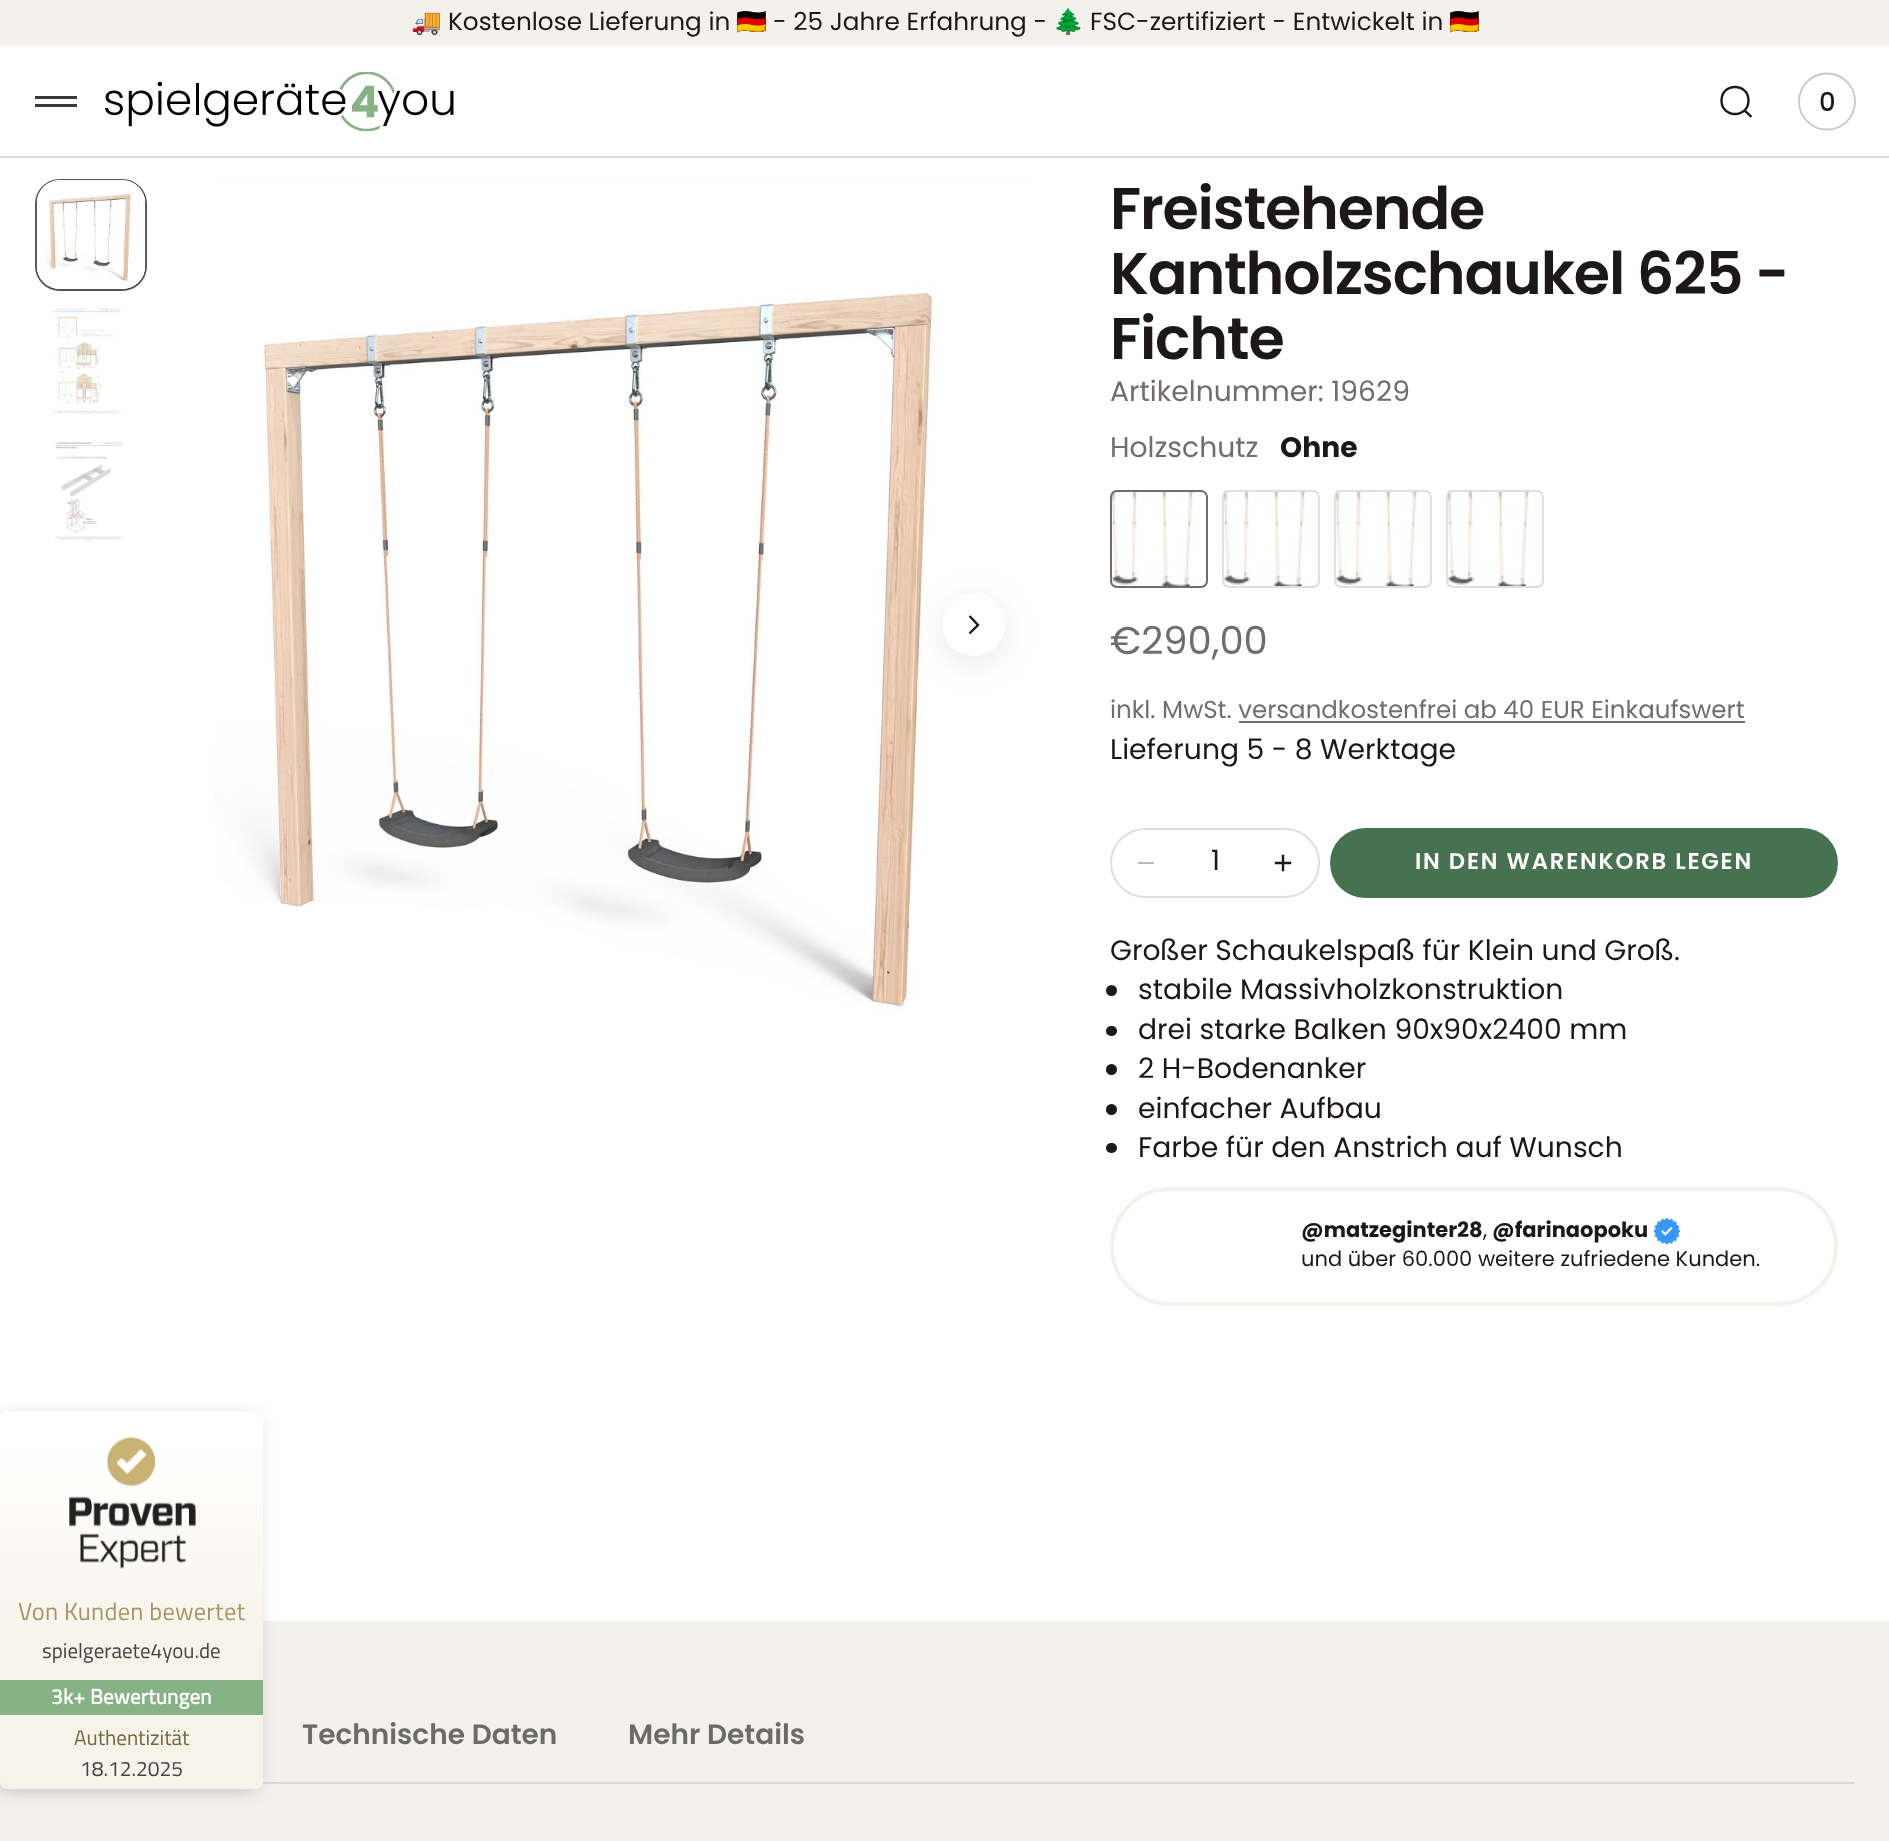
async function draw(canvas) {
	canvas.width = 1889;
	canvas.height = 1841;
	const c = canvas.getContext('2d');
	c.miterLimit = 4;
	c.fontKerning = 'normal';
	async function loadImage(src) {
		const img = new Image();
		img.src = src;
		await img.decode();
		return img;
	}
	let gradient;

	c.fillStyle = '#fff';
	c.fillRect(0, 0, 1889, 1841);
	c.fillStyle = '#f4f1ed';
	c.fillRect(0, 0, 1889, 46);
	c.save();
	c.beginPath();
	c.rect(411, 0, 1068, 46);
	c.clip();
	c.font = '24.75px Noto Color Emoji';
	c.fillStyle = '#1d1818';
	c.fillText('🚚', 411, 30);
	c.restore();
	c.font = '24.75px Poppins';
	c.fillStyle = '#1d1818';
	c.fillText('Kostenlose Lieferung in', 448, 30);
	c.font = '24.75px Noto Color Emoji';
	c.fillText('🇩🇪', 736, 30);
	c.font = '24.75px Poppins';
	c.fillText('- 25 Jahre Erfahrung -', 773, 30);
	c.font = '24.75px Noto Color Emoji';
	c.fillText('🌲', 1053, 30);
	c.font = '24.75px Poppins';
	c.fillText('FSC-zertifiziert - Entwickelt in', 1090, 30);
	c.font = '24.75px Noto Color Emoji';
	c.fillText('🇩🇪', 1449, 30);
	c.fillStyle = '#3b3737';
	c.fillRect(35, 96, 42, 3);
	c.fillRect(35, 104, 42, 3);
	c.drawImage(await loadImage('img1.png'), 105, 72, 349, 59);
	c.beginPath();
	c.moveTo(1744.5, 110.5);
	c.lineTo(1750.5, 116);
	c.moveTo(1748.5, 100.5);
	c.bezierCurveTo(1748.5, 118.5, 1721.5, 118.5, 1721.5, 100.5);
	c.bezierCurveTo(1721.5, 82.5, 1748.5, 82.5, 1748.5, 100.5);
	c.closePath();
	c.strokeStyle = '#1d1818';
	c.lineWidth = 2.4;
	c.lineCap = 'square';
	c.stroke();
	c.letterSpacing = '-1px';
	c.font = '500 26px Poppins';
	c.fillStyle = '#1d1818';
	c.fillText('0', 1819, 111);
	c.beginPath();
	c.moveTo(1799, 101.5);
	c.bezierCurveTo(1799, 86, 1811.5, 73.5, 1827, 73.5);
	c.bezierCurveTo(1842.5, 73.5, 1855, 86, 1855, 101.5);
	c.bezierCurveTo(1855, 117, 1842.5, 129.5, 1827, 129.5);
	c.bezierCurveTo(1811.5, 129.5, 1799, 117, 1799, 101.5);
	c.closePath();
	c.strokeStyle = '#c9c8c8';
	c.lineWidth = 1.8;
	c.lineCap = 'butt';
	c.stroke();
	for (const [x, y, w, h, color] of [
		[0, 156, 1889, 2, '#dfdfdf'],
		[0, 1621, 1889, 220, '#f4f1ed'],
		[262, 1782, 1593, 2, '#dcd9d5'],
	]) {
		c.fillStyle = color;
		c.fillRect(x, y, w, h);
	}
	c.fillStyle = '#00000040';
	c.filter = 'blur(9px)';
	c.beginPath();
	c.roundRect(0, 1418, 256, 371, 4);
	c.fill();
	c.filter = 'none';
	gradient = c.createLinearGradient(131, 1789, 131, 1411);
	gradient.addColorStop(0.37, '#f6f3ea');
	gradient.addColorStop(0.9, '#fff');
	c.fillStyle = gradient;
	c.beginPath();
	c.roundRect(0, 1411, 263, 378, 7);
	c.fill();
	c.drawImage(await loadImage('img2.png'), 69, 1437, 127, 132);
	c.letterSpacing = '0.25px';
	c.font = '24.5px Titillium Web';
	c.fillStyle = '#a79563';
	c.fillText('Von Kunden bewertet', 18, 1620);
	c.letterSpacing = '0px';
	c.font = '21px Titillium Web';
	c.fillStyle = '#444';
	c.fillText('spielgeraete4you.de', 42, 1658);
	c.fillStyle = '#86b286';
	c.fillRect(0, 1680, 263, 35);
	c.letterSpacing = '0.2px';
	c.font = 'bold 21px Titillium Web';
	c.fillStyle = '#fff';
	c.fillText('3k+ Bewertungen', 51, 1704);
	c.letterSpacing = '0px';
	c.font = '21px Titillium Web';
	c.fillStyle = '#726542';
	c.fillText('Authentizität', 74, 1745);
	c.fillStyle = '#444';
	c.fillText('18.12.2025', 80, 1776);
	c.beginPath();
	c.roundRect(36, 180, 110, 110, 24);
	c.strokeStyle = '#565454';
	c.lineWidth = 2;
	c.stroke();
	c.fillStyle = '#fff';
	c.beginPath();
	c.roundRect(37, 180, 108, 109, 23);
	c.fill();
	c.drawImage(await loadImage('img3.png'), 36, 180, 110, 109);
	c.drawImage(await loadImage('img4.png'), 49, 308, 72, 107);
	c.drawImage(await loadImage('img5.png'), 54, 441, 70, 100);
	c.drawImage(await loadImage('img6.png'), 215, 179, 817, 833);
	c.fillStyle = '#00000017';
	c.filter = 'blur(17.5px)';
	c.beginPath();
	c.roundRect(942, 600, 63, 63, 31.5);
	c.fill();
	c.filter = 'none';
	c.fillStyle = '#fff';
	c.beginPath();
	c.arc(973.5, 624.5, 31.5, 0, 2 * Math.PI);
	c.fill();
	c.beginPath();
	c.moveTo(969.5, 633.5);
	c.lineTo(978, 625);
	c.lineTo(969.5, 616);
	c.strokeStyle = '#1d1818';
	c.lineWidth = 2.4;
	c.stroke();
	c.letterSpacing = '-1.2px';
	c.font = '600 58.75px Poppins';
	c.fillStyle = '#1d1818';
	for (const [text, x, y] of [
		['Freistehende', 1110, 229],
		['Kantholzschaukel 625 -', 1110, 294],
		['Fichte', 1110, 359],
	]) {
		c.fillText(text, x, y);
	}
	c.letterSpacing = '0px';
	c.font = '28.2px Poppins';
	c.fillStyle = '#716d6d';
	c.fillText('Artikelnummer: 19629', 1110, 401);
	c.fillText('Holzschutz', 1110, 457);
	c.font = 'bold 28.2px Poppins';
	c.fillStyle = '#1d1818';
	c.fillText('Ohne', 1280, 457);
	c.drawImage(await loadImage('img7.png'), 1110, 490, 85, 98);
	c.beginPath();
	c.roundRect(1111, 491, 96, 96, 6);
	c.strokeStyle = '#716d6d';
	c.lineWidth = 2;
	c.stroke();
	c.drawImage(await loadImage('img8.png'), 1222, 490, 85, 98);
	c.beginPath();
	c.roundRect(1223, 491, 96, 96, 6);
	c.strokeStyle = '#dfdfdf';
	c.stroke();
	c.drawImage(await loadImage('img9.png'), 1334, 490, 85, 98);
	c.beginPath();
	c.roundRect(1335, 491, 96, 96, 6);
	c.stroke();
	c.drawImage(await loadImage('img10.png'), 1447, 490, 84, 98);
	c.beginPath();
	c.roundRect(1447, 491, 96, 96, 6);
	c.stroke();
	c.font = '38.5px Poppins';
	c.fillStyle = '#716d6d';
	c.fillText('€290,00', 1110, 654);
	c.font = '24.5px Poppins';
	c.fillText('inkl. MwSt. versandkostenfrei ab 40 EUR Einkaufswert', 1110, 718);
	c.fillRect(1239, 721, 506, 2);
	c.font = '28.2px Poppins';
	c.fillStyle = '#1d1818';
	c.fillText('Lieferung 5 - 8 Werktage', 1110, 759);
	c.beginPath();
	c.roundRect(1111, 829, 208, 68, 34);
	c.stroke();
	c.fillStyle = '#bbbaba';
	c.fillRect(1138, 862, 16, 2);
	c.fillStyle = '#1d1818';
	c.fillText('1', 1211, 870);
	c.beginPath();
	c.moveTo(1283, 856);
	c.lineTo(1283, 870);
	c.moveTo(1290, 863);
	c.lineTo(1276, 863);
	c.strokeStyle = '#1d1818';
	c.lineWidth = 2.4;
	c.lineCap = 'square';
	c.stroke();
	c.fillStyle = '#467252';
	c.beginPath();
	c.roundRect(1330, 828, 508, 70, 35);
	c.fill();
	c.letterSpacing = '1.8px';
	c.font = '600 22.75px Poppins';
	c.fillStyle = '#fff';
	c.fillText('IN DEN WARENKORB LEGEN', 1415, 869);
	c.letterSpacing = '0px';
	c.font = '28.2px Poppins';
	c.fillStyle = '#1d1818';
	c.fillText('Großer Schaukelspaß für Klein und Groß.', 1110, 960);
	c.beginPath();
	c.arc(1111.5, 990.5, 5.5, 0, 2 * Math.PI);
	c.fill();
	c.fillText('stabile Massivholzkonstruktion', 1138, 999);
	c.beginPath();
	c.roundRect(1106, 1026, 11, 10, 5);
	c.fill();
	c.fillText('drei starke Balken 90x90x2400 mm', 1138, 1039);
	c.beginPath();
	c.arc(1111.5, 1069.5, 5.5, 0, 2 * Math.PI);
	c.fill();
	c.fillText('2 H-Bodenanker', 1138, 1078);
	c.beginPath();
	c.arc(1111.5, 1109.5, 5.5, 0, 2 * Math.PI);
	c.fill();
	c.fillText('einfacher Aufbau', 1138, 1118);
	c.beginPath();
	c.roundRect(1106, 1143, 11, 10, 5);
	c.fill();
	c.fillText('Farbe für den Anstrich auf Wunsch', 1138, 1157);
	c.beginPath();
	c.roundRect(1112, 1189, 724, 115, 57.5);
	c.strokeStyle = '#f4f1ec';
	c.lineWidth = 4;
	c.stroke();
	c.font = 'bold 21px Poppins';
	c.fillText('@matzeginter28', 1301, 1237);
	c.font = '21px Poppins';
	c.fillText(',', 1483, 1237);
	c.font = 'bold 21px Poppins';
	c.fillText('@farinaopoku', 1492, 1237);
	c.drawImage(await loadImage('img11.png'), 1653, 1218, 27, 27);
	c.font = '21px Poppins';
	c.fillText('und über 60.000 weitere zufriedene Kunden.', 1301, 1266);
	c.font = '600 28px Poppins';
	c.fillStyle = '#6b6b6b';
	c.fillText('Technische Daten', 302, 1744);
	c.fillText('Mehr Details', 628, 1744);
}

draw(document.querySelector('canvas'));
